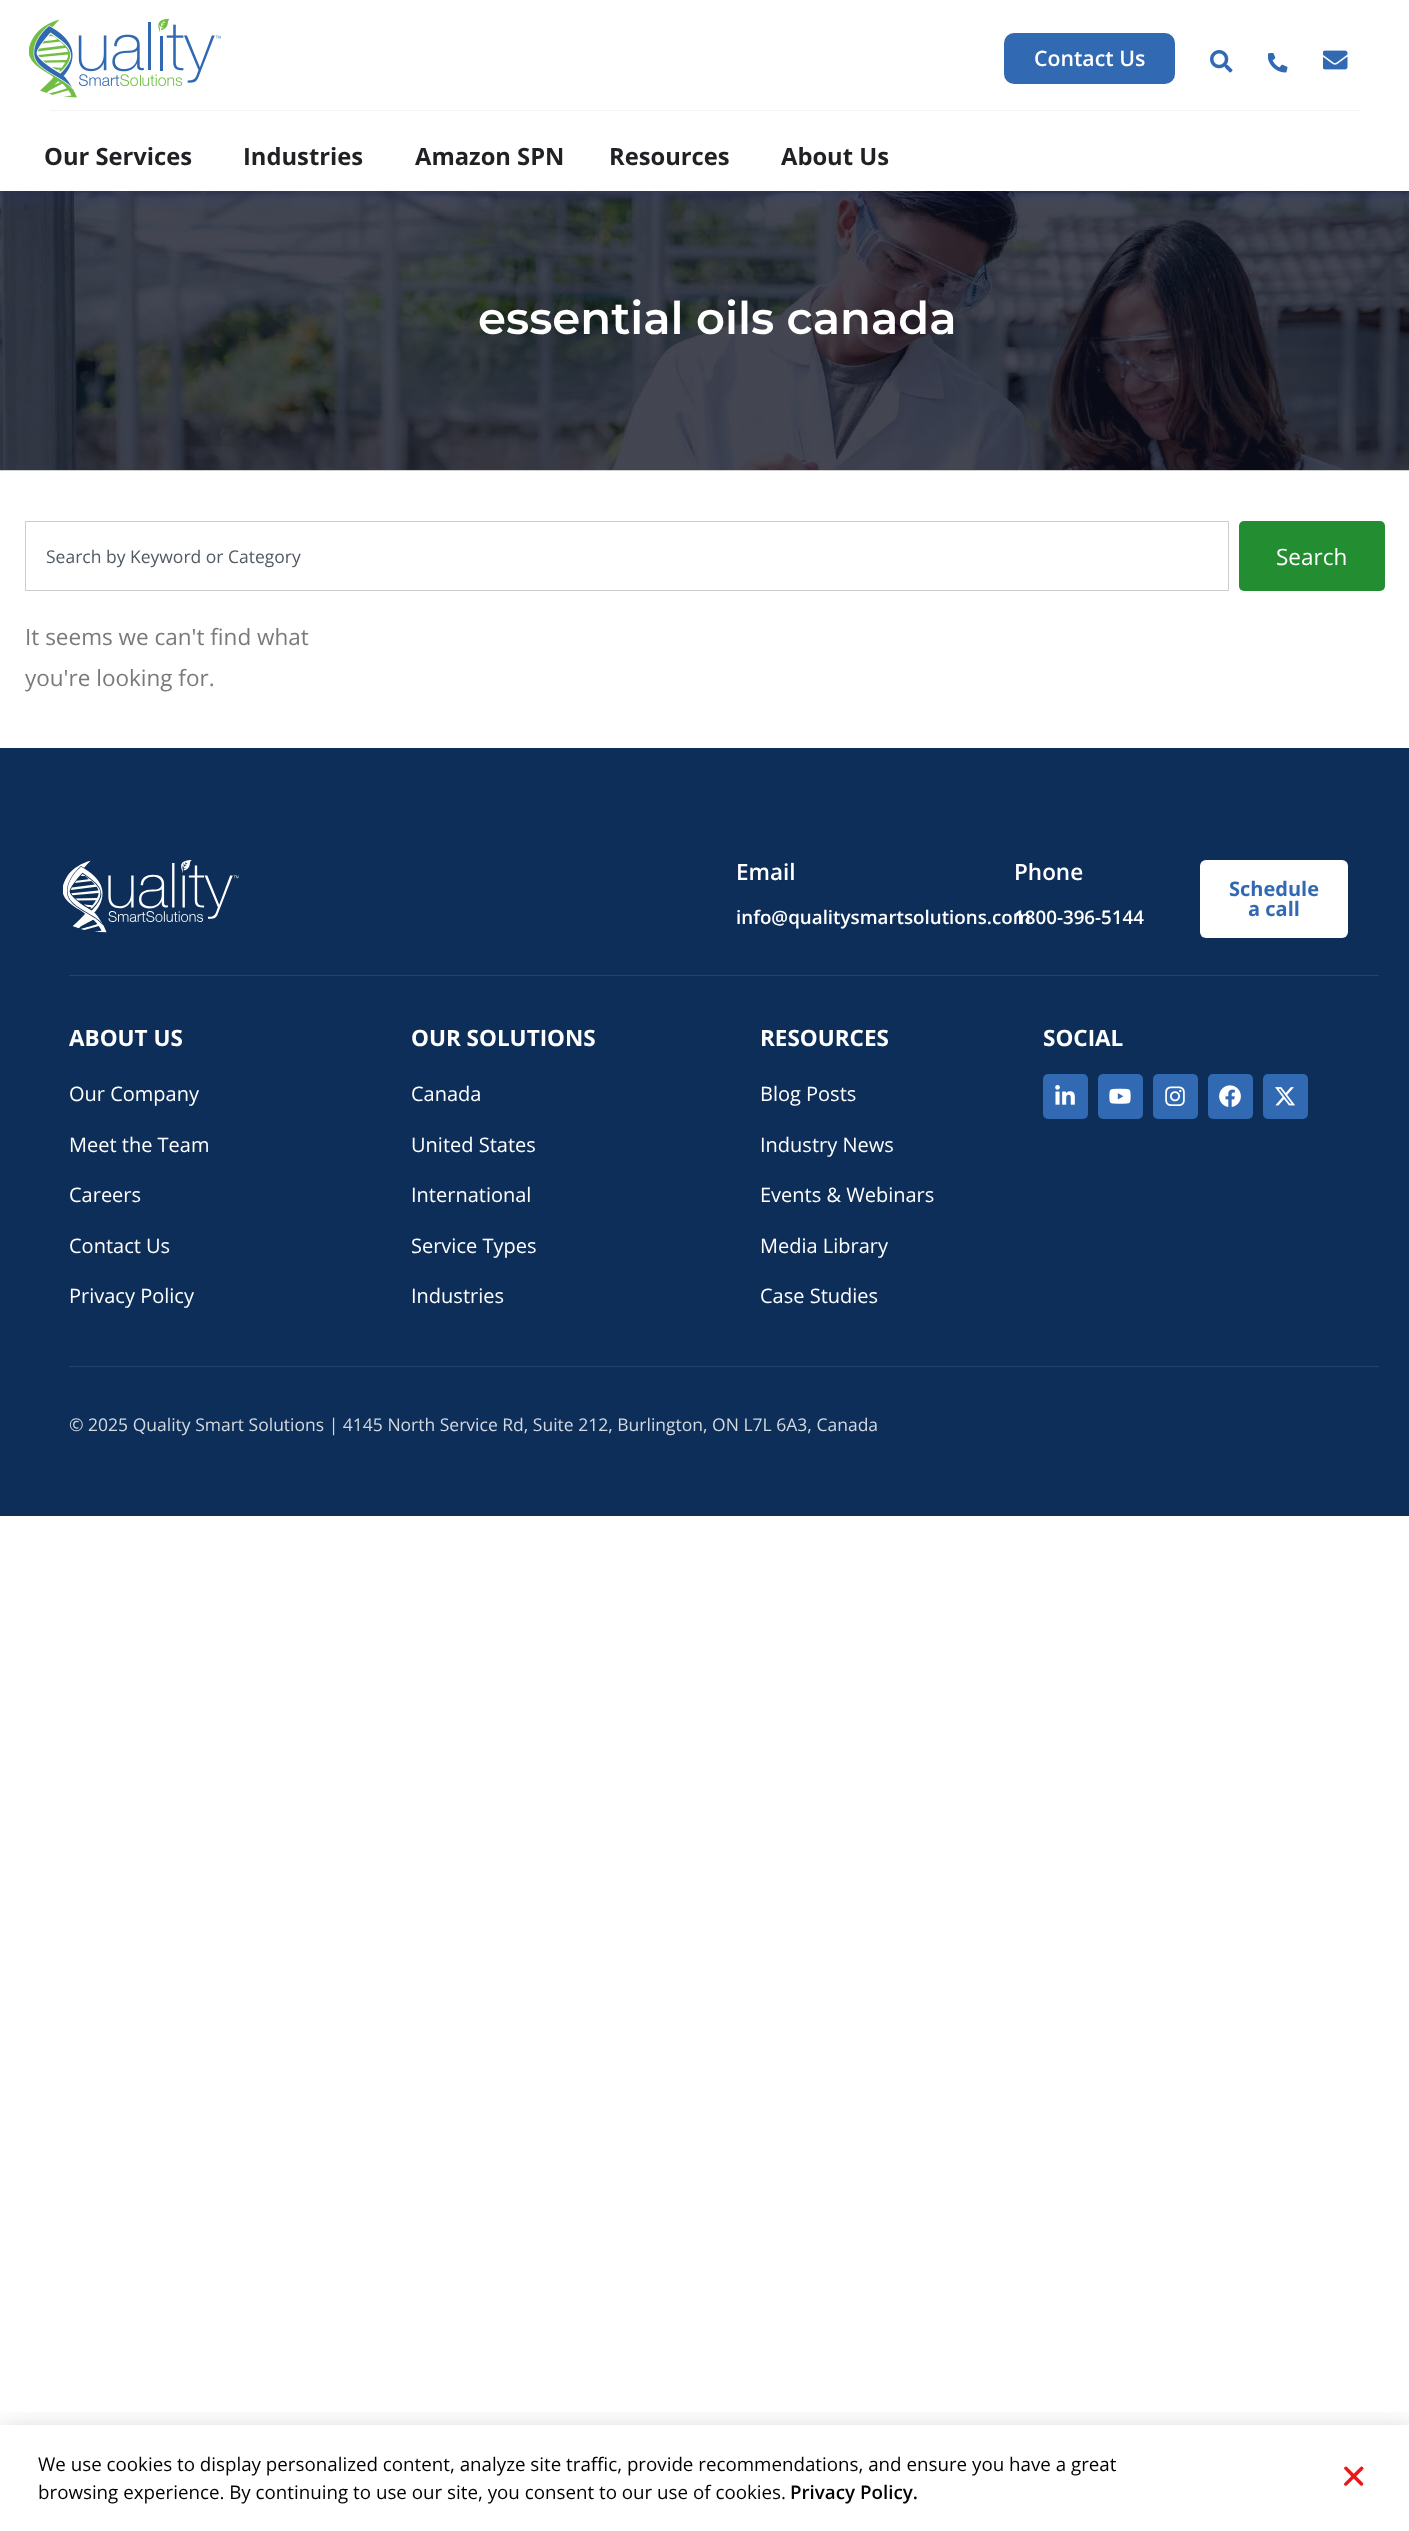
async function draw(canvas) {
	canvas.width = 1409;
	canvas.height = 2531;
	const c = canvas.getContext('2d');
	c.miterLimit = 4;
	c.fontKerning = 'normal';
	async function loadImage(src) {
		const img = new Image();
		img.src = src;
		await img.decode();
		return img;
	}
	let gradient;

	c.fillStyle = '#fff';
	c.fillRect(0, 0, 1409, 2531);
	c.drawImage(await loadImage('img5.png'), 0, 191, 1409, 279);
	gradient = c.createLinearGradient(705, 470, 705, 166);
	gradient.addColorStop(0.86, '#0b0e1dc4');
	gradient.addColorStop(1, '#0f144dc4');
	c.fillStyle = gradient;
	c.fillRect(0, 191, 1409, 279);
	c.fillStyle = '#00000017';
	c.filter = 'blur(6px)';
	c.beginPath();
	c.rect(0, 1, 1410, 192);
	c.fill();
	c.filter = 'none';
	c.fillStyle = '#fff';
	c.fillRect(0, 0, 1409, 191);
	c.fillStyle = '#f4f4f4';
	c.fillRect(50, 110, 1310, 1);
	c.drawImage(await loadImage('img1.png'), 29, 19, 192, 79);
	c.fillStyle = '#3269b3';
	c.beginPath();
	c.roundRect(1004, 33, 171, 51, 10);
	c.fill();
	c.font = '600 21.25px Open Sans';
	c.fillStyle = '#fff';
	c.fillText('Contact Us', 1034, 66);
	c.drawImage(await loadImage('img2.png'), 1210, 50, 23, 23);
	c.drawImage(await loadImage('img3.png'), 1268, 53, 20, 20);
	c.drawImage(await loadImage('img4.png'), 1323, 50, 25, 20);
	c.font = 'bold 23.75px Open Sans';
	c.fillStyle = '#1f2124';
	for (const [text, x, y] of [
		['Our Services', 44, 165],
		['Industries', 243, 165],
		['Amazon SPN', 415, 165],
		['Resources', 609, 165],
		['About Us', 781, 165],
	]) {
		c.fillText(text, x, y);
	}
	c.font = '600 45px Montserrat';
	c.fillStyle = '#fff';
	c.fillText('essential oils canada', 478, 334);
	c.fillStyle = '#cecece';
	c.fillRect(0, 470, 1409, 1);
	c.strokeStyle = '#cdcdcd';
	c.strokeRect(25.5, 521.5, 1203, 69);
	c.font = '17.5px Open Sans';
	c.fillStyle = '#515962';
	c.fillText('Search by Keyword or Category', 46, 563);
	c.fillStyle = '#238d31';
	c.beginPath();
	c.roundRect(1239, 521, 146, 70, 5);
	c.fill();
	c.font = '22.5px Open Sans';
	c.fillStyle = '#fff';
	c.fillText('Search', 1276, 565);
	c.fillStyle = '#7a7a7a';
	c.fillText('It seems we can\'t find what', 25, 645);
	c.fillText('you\'re looking for.', 25, 686);
	c.fillStyle = '#0d2e59';
	c.fillRect(0, 748, 1409, 768);
	c.drawImage(await loadImage('img6.png'), 63, 860, 176, 73);
	c.font = '600 22.5px Open Sans';
	c.fillStyle = '#fff';
	c.fillText('Email', 736, 880);
	c.font = '600 18.75px Open Sans';
	c.fillText('info@qualitysmartsolutions.com', 736, 924);
	c.font = '600 22.5px Open Sans';
	c.fillText('Phone', 1014, 880);
	c.font = '600 18.75px Open Sans';
	c.fillText('1800-396-5144', 1014, 924);
	c.beginPath();
	c.roundRect(1200, 860, 148, 78, 6);
	c.fill();
	c.font = 'bold 20px Open Sans';
	c.fillStyle = '#3269b3';
	c.fillText('Schedule', 1229, 896);
	c.fillText('a call', 1248, 916);
	c.fillStyle = '#254369';
	c.fillRect(69, 975, 1310, 1);
	c.fillRect(69, 1366, 1310, 1);
	c.font = 'bold 22.5px Open Sans';
	c.fillStyle = '#fff';
	c.fillText('ABOUT US', 69, 1046);
	c.font = '20px Open Sans';
	for (const [text, x, y] of [
		['Our Company', 69, 1101],
		['Meet the Team', 69, 1152],
		['Careers', 69, 1202],
		['Contact Us', 69, 1253],
		['Privacy Policy', 69, 1303],
	]) {
		c.fillText(text, x, y);
	}
	c.font = 'bold 22.5px Open Sans';
	c.fillText('OUR SOLUTIONS', 411, 1046);
	c.font = '20px Open Sans';
	for (const [text, x, y] of [
		['Canada', 411, 1101],
		['United States', 411, 1152],
		['International', 411, 1202],
		['Service Types', 411, 1253],
		['Industries', 411, 1303],
	]) {
		c.fillText(text, x, y);
	}
	c.font = 'bold 22.5px Open Sans';
	c.fillText('RESOURCES', 760, 1046);
	c.font = '20px Open Sans';
	for (const [text, x, y] of [
		['Blog Posts', 760, 1101],
		['Industry News', 760, 1152],
		['Events & Webinars', 760, 1202],
		['Media Library', 760, 1253],
		['Case Studies', 760, 1303],
	]) {
		c.fillText(text, x, y);
	}
	c.font = 'bold 22.5px Open Sans';
	c.fillText('SOCIAL', 1043, 1046);
	c.fillStyle = '#3269b3';
	c.beginPath();
	c.roundRect(1043, 1074, 45, 45, 5);
	c.fill();
	c.drawImage(await loadImage('img7.png'), 1055, 1085, 20, 20);
	c.beginPath();
	c.roundRect(1098, 1074, 45, 45, 5);
	c.fill();
	c.drawImage(await loadImage('img8.png'), 1109, 1088, 22, 16);
	c.beginPath();
	c.roundRect(1153, 1074, 45, 45, 5);
	c.fill();
	c.drawImage(await loadImage('img9.png'), 1165, 1086, 20, 20);
	c.beginPath();
	c.roundRect(1208, 1074, 45, 45, 5);
	c.fill();
	c.drawImage(await loadImage('img10.png'), 1219, 1085, 22, 22);
	c.beginPath();
	c.roundRect(1263, 1074, 45, 45, 5);
	c.fill();
	c.drawImage(await loadImage('img11.png'), 1275, 1087, 20, 19);
	c.font = '17.5px Open Sans';
	c.fillStyle = '#d3d9e1';
	c.fillText('© 2025 Quality Smart Solutions | 4145 North Service Rd, Suite 212, Burlington, ON L7L 6A3, Canada', 69, 1431);
	c.save();
	c.beginPath();
	c.rect(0, 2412, 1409, 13);
	c.clip();
	c.fillStyle = '#00000033';
	c.filter = 'blur(14.5px)';
	c.beginPath();
	c.rect(-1, 2431, 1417, 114);
	c.fill();
	c.filter = 'none';
	c.restore();
	c.font = '18.75px Open Sans';
	c.fillStyle = '#000';
	c.fillText('We use cookies to display personalized content, analyze site traffic, provide recommendations, and ensure you have a great', 38, 2471);
	c.fillText('browsing experience. By continuing to use our site, you consent to our use of cookies.', 38, 2499);
	c.font = '600 18.75px Open Sans';
	c.fillText('Privacy Policy.', 790, 2499);
	c.drawImage(await loadImage('img12.png'), 1344, 2466, 20, 20);
}

draw(document.querySelector('canvas'));
